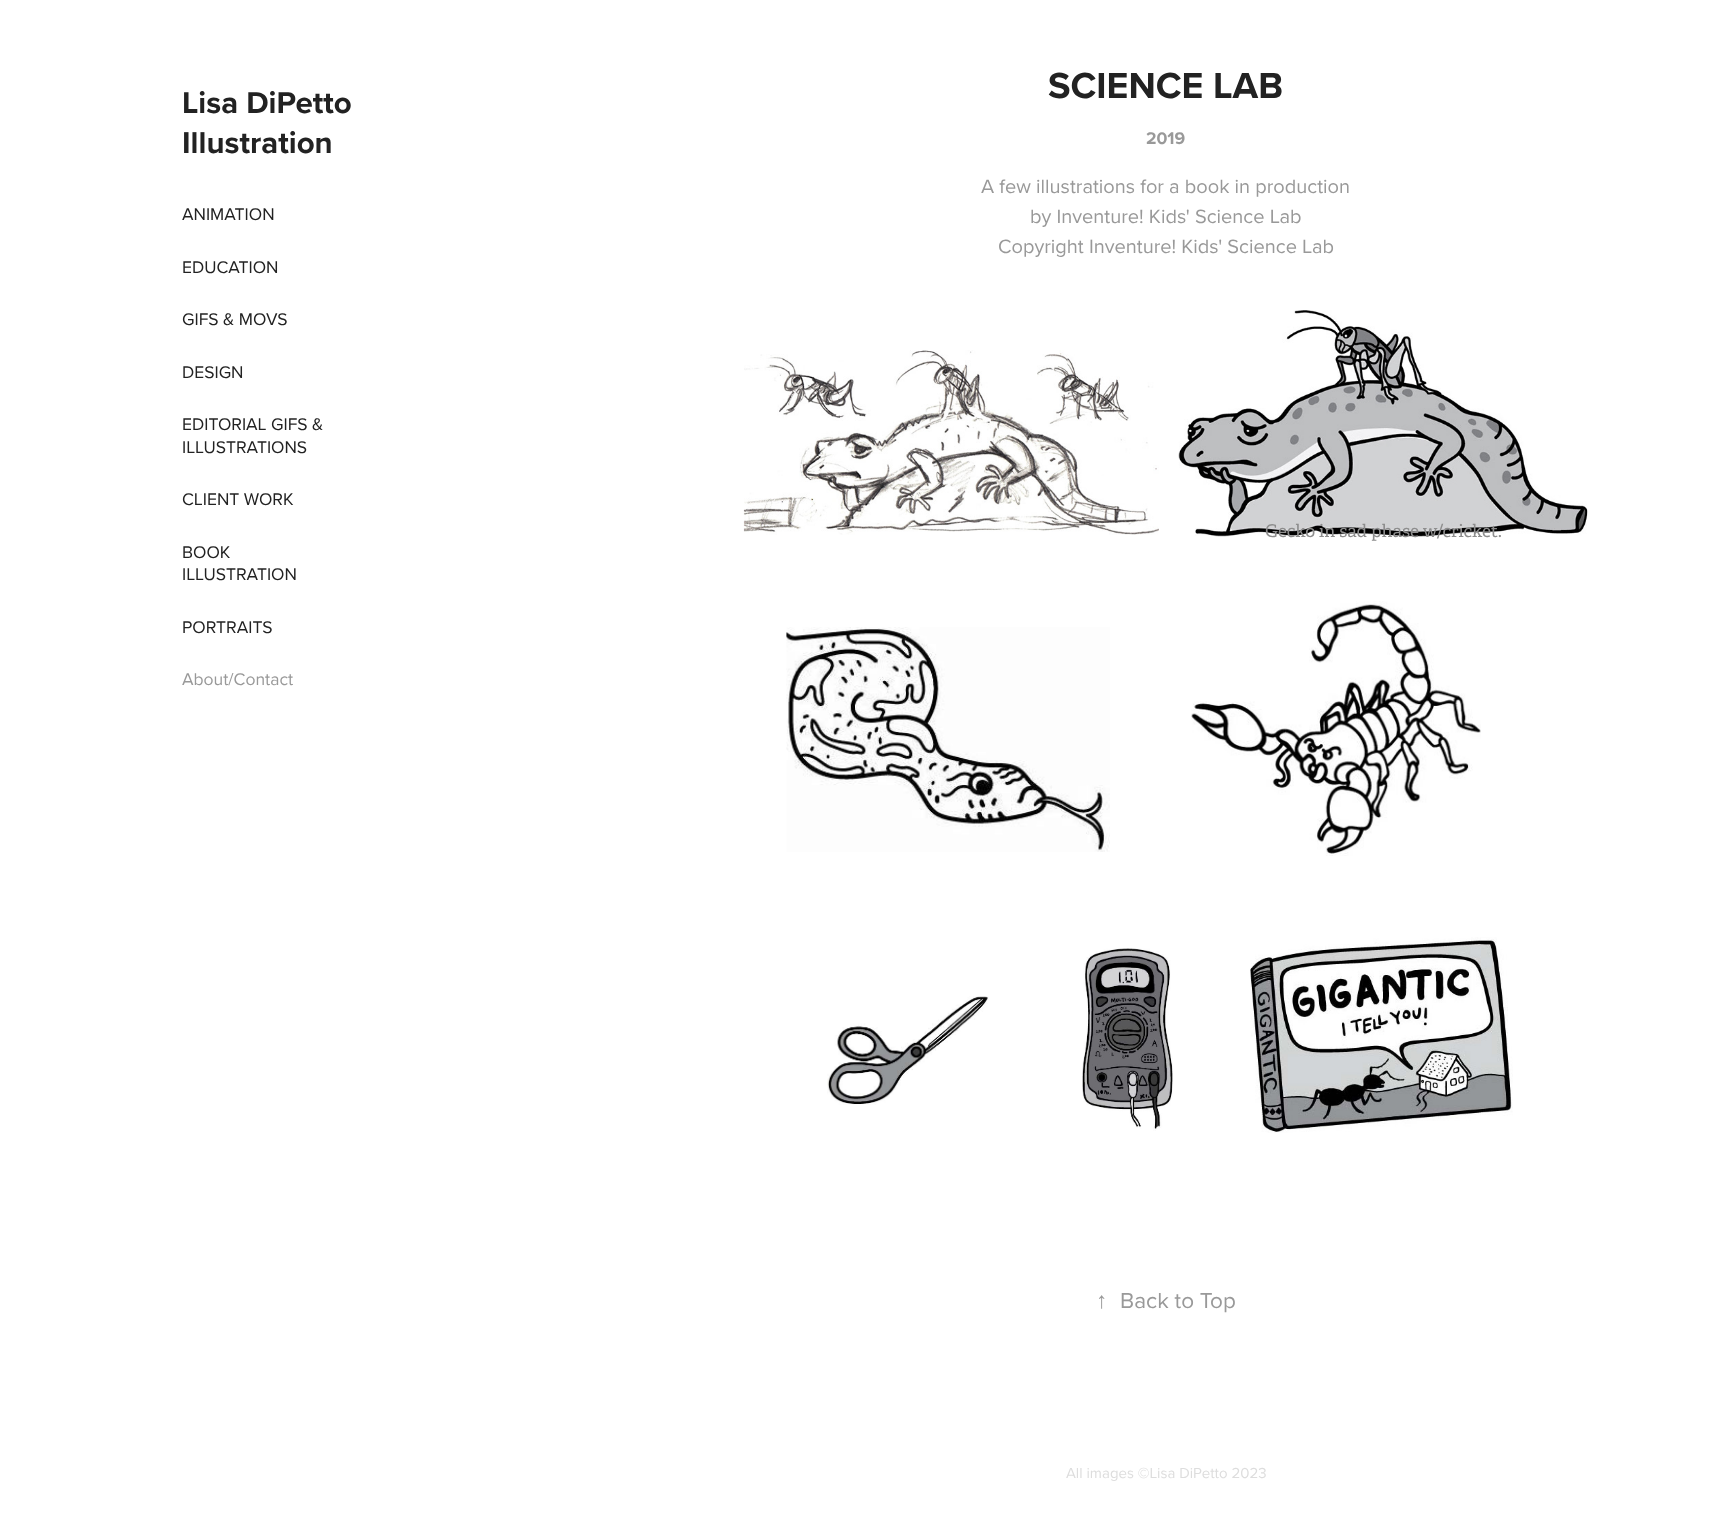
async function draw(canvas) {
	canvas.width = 1735;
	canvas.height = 1528;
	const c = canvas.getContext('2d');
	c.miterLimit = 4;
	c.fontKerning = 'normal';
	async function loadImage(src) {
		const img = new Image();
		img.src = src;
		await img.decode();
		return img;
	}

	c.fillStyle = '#fff';
	c.fillRect(0, 0, 1735, 1528);
	c.font = 'bold 31.25px Proxima Nova';
	c.fillStyle = '#222';
	c.fillText('Lisa DiPetto', 182, 113);
	c.fillText('Illustration', 182, 153);
	c.font = '17.5px Proxima Nova';
	for (const [text, x, y] of [
		['ANIMATION', 182, 220],
		['EDUCATION', 182, 273],
		['GIFS & MOVS', 182, 325],
		['DESIGN', 182, 378],
		['EDITORIAL GIFS &', 182, 430],
		['ILLUSTRATIONS', 182, 453],
		['CLIENT WORK', 182, 505],
		['BOOK', 182, 558],
		['ILLUSTRATION', 182, 580],
		['PORTRAITS', 182, 633],
	]) {
		c.fillText(text, x, y);
	}
	c.fillStyle = '#999';
	c.fillText('About/Contact', 182, 685);
	c.font = 'bold 37.5px Proxima Nova';
	c.fillStyle = '#222';
	c.fillText('SCIENCE LAB', 1048, 98);
	c.font = 'bold 17.5px Proxima Nova';
	c.fillStyle = '#999';
	c.fillText('2019', 1146, 144);
	c.font = '20px Proxima Nova';
	for (const [text, x, y] of [
		['A few illustrations for a book in production', 981, 193],
		['by Inventure! Kids\' Science Lab', 1030, 223],
		['Copyright Inventure! Kids\' Science Lab', 998, 253],
	]) {
		c.fillText(text, x, y);
	}
	c.drawImage(await loadImage('img1.png'), 743, 350, 416, 185);
	c.drawImage(await loadImage('img2.png'), 1178, 310, 410, 227);
	c.font = '17.5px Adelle';
	c.fillStyle = '#8d8d8d';
	c.fillText('Gecko in sad phase w/cricket.', 1265, 537);
	c.drawImage(await loadImage('img3.png'), 786, 627, 324, 225);
	c.drawImage(await loadImage('img4.png'), 1191, 601, 290, 255);
	c.drawImage(await loadImage('img5.png'), 827, 996, 162, 109);
	c.drawImage(await loadImage('img6.png'), 1082, 948, 91, 183);
	c.drawImage(await loadImage('img7.png'), 1250, 937, 263, 196);
	c.font = '22.5px Liberation Serif';
	c.fillStyle = '#999';
	c.fillText('↑', 1096, 1308);
	c.font = '22.5px Proxima Nova';
	c.fillText('Back to Top', 1120, 1308);
	c.font = '15px Proxima Nova';
	c.fillStyle = '#ddd';
	c.fillText('All images ©Lisa DiPetto 2023', 1066, 1478);
}

draw(document.querySelector('canvas'));
